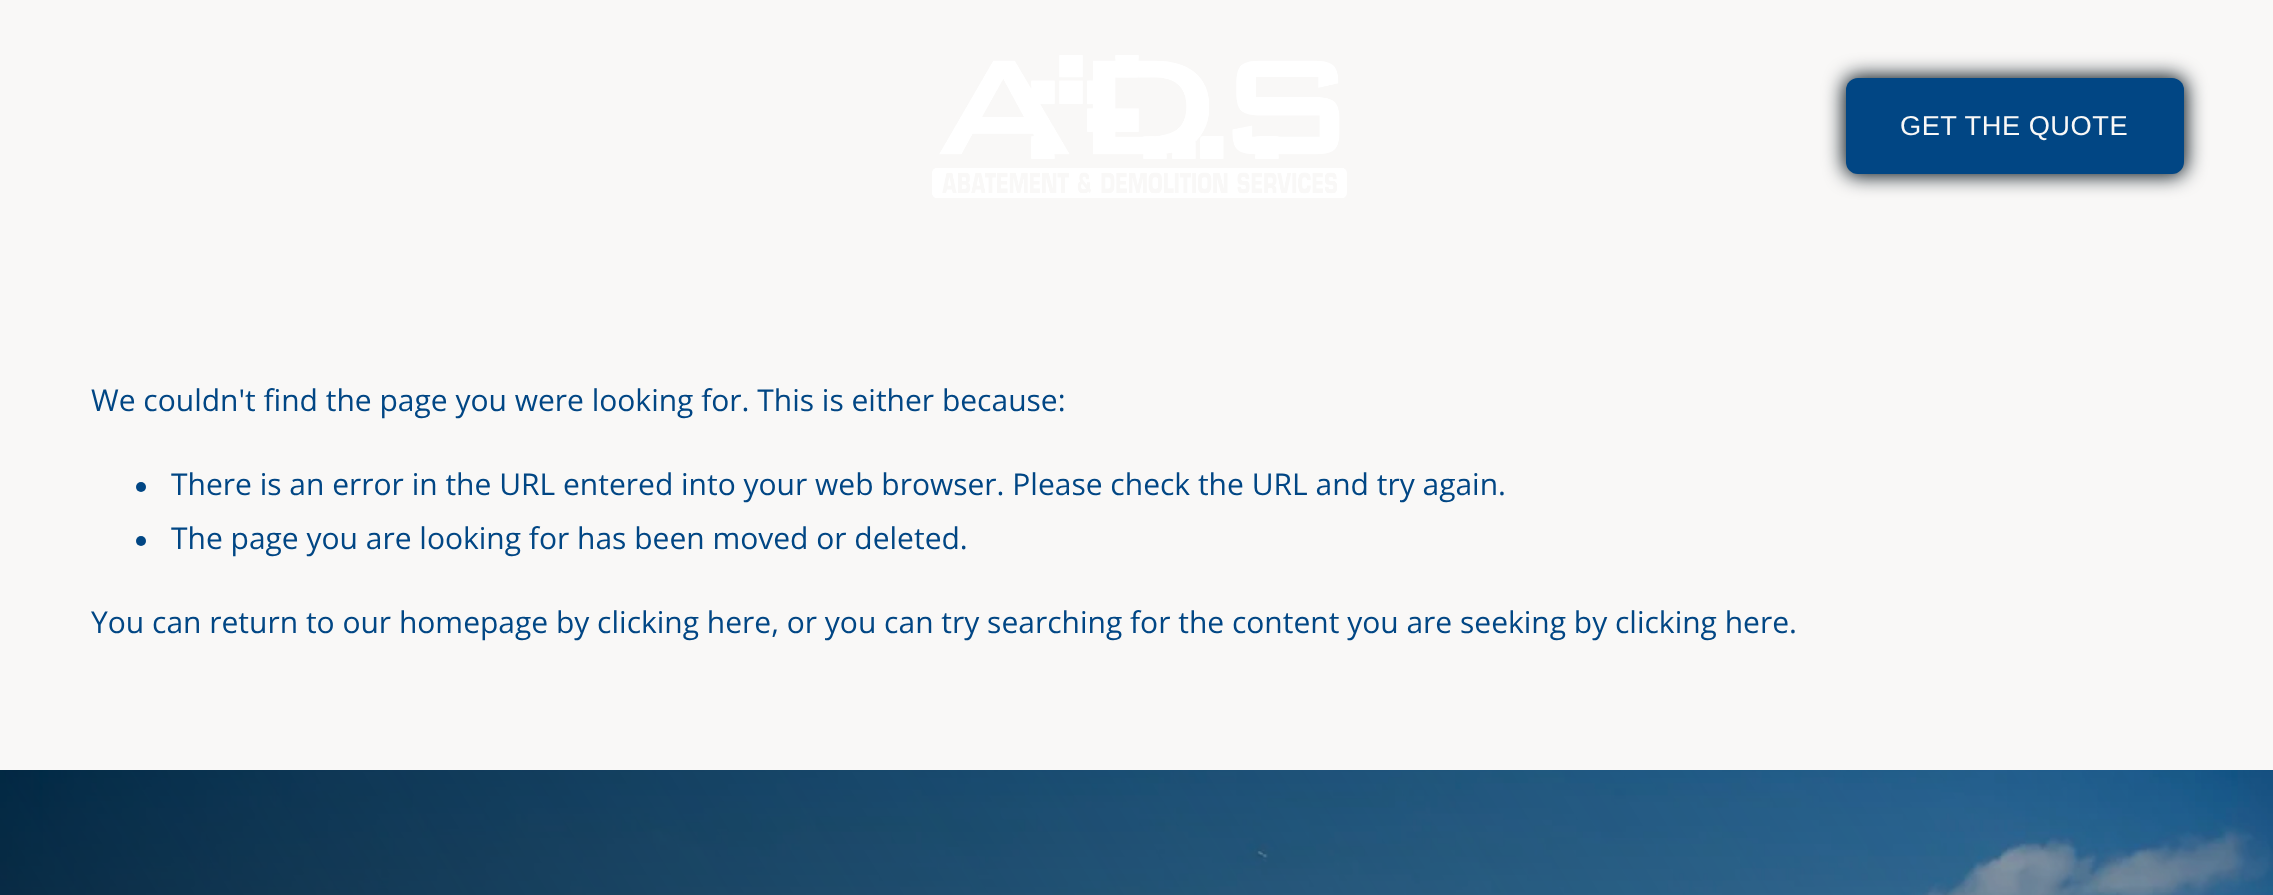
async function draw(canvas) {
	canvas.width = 2273;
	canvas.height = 895;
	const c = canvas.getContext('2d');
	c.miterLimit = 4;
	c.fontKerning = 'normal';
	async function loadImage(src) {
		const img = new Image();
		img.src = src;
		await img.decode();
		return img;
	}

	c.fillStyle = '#f9f8f7';
	c.fillRect(0, 0, 2273, 895);
	c.drawImage(await loadImage('img1.png'), 932, 55, 415, 143);
	c.fillStyle = '#000d16';
	c.filter = 'blur(10px)';
	c.beginPath();
	c.roundRect(1844, 76, 342, 100, 14);
	c.fill();
	c.filter = 'none';
	c.fillStyle = '#014684';
	c.beginPath();
	c.roundRect(1846, 78, 338, 96, 12);
	c.fill();
	c.letterSpacing = '0.5px';
	c.font = '27.25px Liberation Sans';
	c.fillStyle = '#f9f8f7';
	c.fillText('GET THE QUOTE', 1900, 135);
	c.letterSpacing = '0px';
	c.font = '30px Open Sans';
	c.fillStyle = '#014684';
	c.fillText('We couldn\'t find the page you were looking for. This is either because:', 91, 411);
	c.beginPath();
	c.arc(141, 487, 5, 0, 2 * Math.PI);
	c.fill();
	c.fillText('There is an error in the URL entered into your web browser. Please check the URL and try again.', 171, 495);
	c.beginPath();
	c.arc(141, 541, 5, 0, 2 * Math.PI);
	c.fill();
	c.fillText('The page you are looking for has been moved or deleted.', 171, 549);
	c.fillText('You can return to our homepage by clicking here, or you can try searching for the content you are seeking by clicking here.', 91, 633);
	c.drawImage(await loadImage('img2.png'), 0, 770, 2273, 125);
}

draw(document.querySelector('canvas'));
